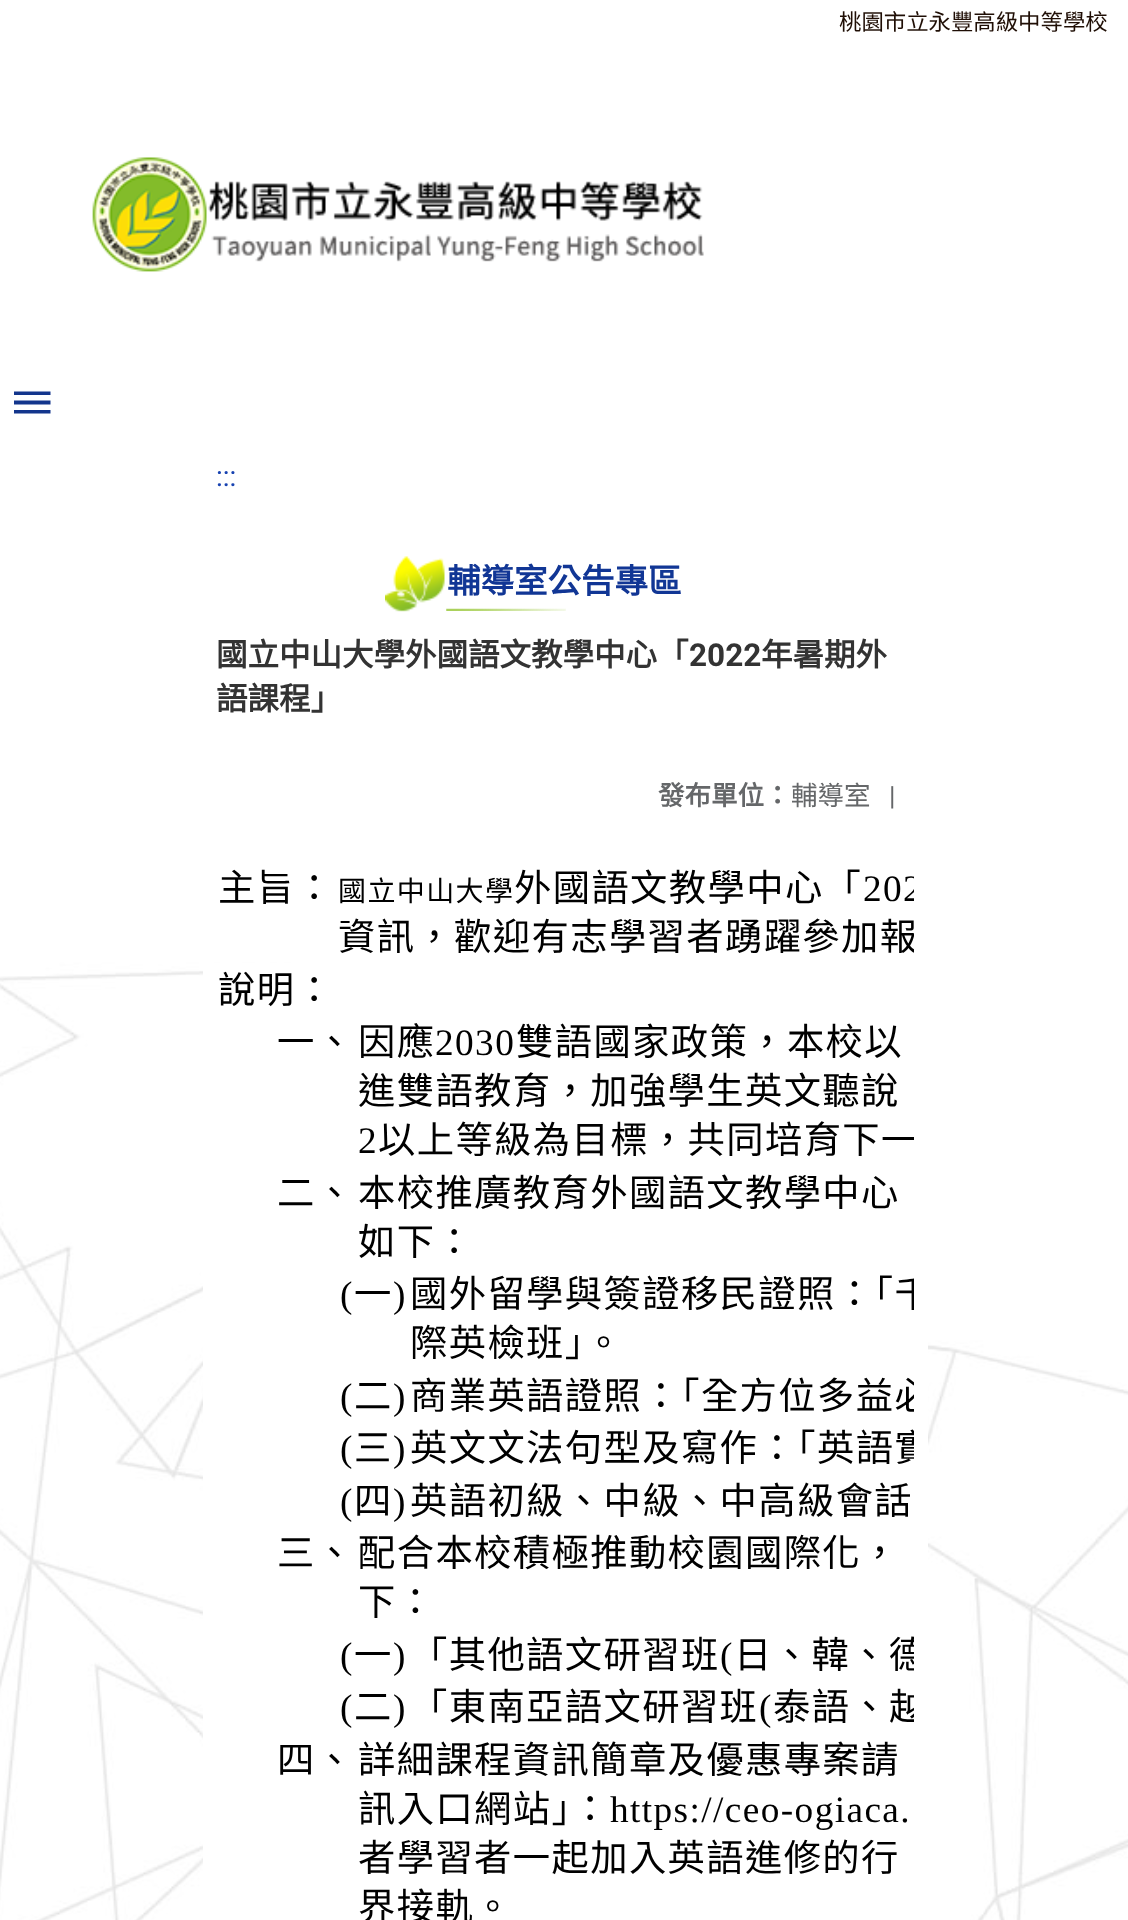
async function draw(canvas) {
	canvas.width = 1128;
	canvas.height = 1920;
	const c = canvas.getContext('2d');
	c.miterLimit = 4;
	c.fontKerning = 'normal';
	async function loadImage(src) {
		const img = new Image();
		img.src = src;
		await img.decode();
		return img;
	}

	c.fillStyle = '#fff';
	c.fillRect(0, 0, 1128, 1920);
	c.drawImage(await loadImage('img1.png'), 0, 0, 1128, 1920);
	c.font = '22.4px Noto Sans CJK TC';
	c.fillStyle = '#1f0e05';
	c.fillText('桃園市立永豐高級中等學校', 839, 30);
	c.drawImage(await loadImage('img2.png'), 92, 157, 612, 115);
	c.fillStyle = '#13358c';
	c.beginPath();
	c.moveTo(14, 391.5);
	c.lineTo(50.5, 391.5);
	c.lineTo(50.5, 395);
	c.lineTo(14, 395);
	c.closePath();
	c.moveTo(14, 400.5);
	c.lineTo(50.5, 400.5);
	c.lineTo(50.5, 404.5);
	c.lineTo(14, 404.5);
	c.closePath();
	c.moveTo(14, 410);
	c.lineTo(50.5, 410);
	c.lineTo(50.5, 413.5);
	c.lineTo(14, 413.5);
	c.closePath();
	c.fill();
	c.font = '28px Roboto';
	c.fillStyle = '#1742b1';
	c.fillText(':::', 216, 486);
	c.fillStyle = '#fff';
	c.fillRect(203, 963, 725, 957);
	c.drawImage(await loadImage('img3.png'), 446, 608, 120, 3);
	c.drawImage(await loadImage('img4.png'), 385, 556, 60, 56);
	c.font = 'bold 33.5px Noto Sans CJK TC';
	c.fillStyle = '#113695';
	c.fillText('輔導室公告專區', 447, 593);
	c.font = 'bold 31.5px Noto Sans CJK TC';
	c.fillStyle = '#333';
	c.fillText('國立中山大學外國語文教學中心「', 216, 666);
	c.font = 'bold 31.5px Roboto';
	c.fillText('2022', 689, 666);
	c.font = 'bold 31.5px Noto Sans CJK TC';
	c.fillText('年暑期外', 761, 666);
	c.fillText('語課程」', 216, 710);
	c.font = 'bold 26.5px Noto Sans CJK TC';
	c.fillStyle = '#656769';
	c.fillText('發布單位：', 658, 805);
	c.font = '26.5px Noto Sans CJK TC';
	c.fillText('輔導室', 791, 805);
	c.font = '26.5px Roboto';
	c.fillText('|', 889, 805);
	c.letterSpacing = '1.4px';
	c.font = '37.3px Noto Sans CJK TC';
	c.fillStyle = '#000';
	c.fillText('主旨：', 218, 901);
	c.font = '28px Noto Sans CJK TC';
	c.fillText('國立中山大學', 338, 901);
	c.font = '37.3px Noto Sans CJK TC';
	c.fillText('外國語文教學中心「', 514, 901);
	c.save();
	c.beginPath();
	c.rect(217, 847, 697, 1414);
	c.clip();
	c.font = '37.3px Liberation Serif';
	c.fillText('202', 863, 901);
	c.font = '37.3px Noto Sans CJK TC';
	c.fillText('資訊，歡迎有志學習者踴躍參加報', 338, 950);
	c.restore();
	for (const [text, x, y] of [
		['說明：', 218, 1003],
		['一、', 277, 1055],
		['因應', 358, 1055],
	]) {
		c.fillText(text, x, y);
	}
	c.font = '37.3px Liberation Serif';
	c.fillText('2030', 435, 1055);
	c.font = '37.3px Noto Sans CJK TC';
	c.fillText('雙語國家政策，本校以', 516, 1055);
	c.fillText('進雙語教育，加強學生英文聽說', 358, 1104);
	c.font = '37.3px Liberation Serif';
	c.fillText('2', 358, 1153);
	c.save();
	c.beginPath();
	c.rect(217, 847, 697, 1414);
	c.clip();
	c.font = '37.3px Noto Sans CJK TC';
	c.fillText('以上等級為目標，共同培育下一', 378, 1153);
	c.restore();
	c.font = '37.3px Noto Sans CJK TC';
	for (const [text, x, y] of [
		['二、', 277, 1206],
		['本校推廣教育外國語文教學中心', 358, 1206],
		['如下：', 358, 1255],
	]) {
		c.fillText(text, x, y);
	}
	c.font = '37.3px Liberation Serif';
	c.fillText('(', 340, 1307);
	c.font = '37.3px Noto Sans CJK TC';
	c.fillText('一', 354, 1307);
	c.font = '37.3px Liberation Serif';
	c.fillText(')', 393, 1307);
	c.save();
	c.beginPath();
	c.rect(217, 847, 697, 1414);
	c.clip();
	c.font = '37.3px Noto Sans CJK TC';
	c.fillText('國外留學與簽證移民證照：「千', 410, 1307);
	c.restore();
	c.font = '37.3px Noto Sans CJK TC';
	c.fillText('際英檢班」。', 410, 1356);
	c.font = '37.3px Liberation Serif';
	c.fillText('(', 340, 1409);
	c.font = '37.3px Noto Sans CJK TC';
	c.fillText('二', 354, 1409);
	c.font = '37.3px Liberation Serif';
	c.fillText(')', 393, 1409);
	c.save();
	c.beginPath();
	c.rect(217, 847, 697, 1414);
	c.clip();
	c.font = '37.3px Noto Sans CJK TC';
	c.fillText('商業英語證照：「全方位多益必', 410, 1409);
	c.restore();
	c.fillText('(', 340, 1461);
	c.font = '37.3px Noto Sans CJK TC';
	c.fillText('三', 354, 1461);
	c.font = '37.3px Liberation Serif';
	c.fillText(')', 393, 1461);
	c.save();
	c.beginPath();
	c.rect(217, 847, 697, 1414);
	c.clip();
	c.font = '37.3px Noto Sans CJK TC';
	c.fillText('英文文法句型及寫作：「英語實', 410, 1461);
	c.restore();
	c.fillText('(', 340, 1514);
	c.font = '37.3px Noto Sans CJK TC';
	c.fillText('四', 354, 1514);
	c.font = '37.3px Liberation Serif';
	c.fillText(')', 393, 1514);
	c.font = '37.3px Noto Sans CJK TC';
	for (const [text, x, y] of [
		['英語初級、中級、中高級會話', 410, 1514],
		['三、', 277, 1566],
		['配合本校積極推動校園國際化，', 358, 1566],
		['下：', 358, 1615],
	]) {
		c.fillText(text, x, y);
	}
	c.font = '37.3px Liberation Serif';
	c.fillText('(', 340, 1668);
	c.font = '37.3px Noto Sans CJK TC';
	c.fillText('一', 354, 1668);
	c.font = '37.3px Liberation Serif';
	c.fillText(')', 393, 1668);
	c.font = '37.3px Noto Sans CJK TC';
	c.fillText('「其他語文研習班', 410, 1668);
	c.font = '37.3px Liberation Serif';
	c.fillText('(', 720, 1668);
	c.save();
	c.beginPath();
	c.rect(217, 847, 697, 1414);
	c.clip();
	c.font = '37.3px Noto Sans CJK TC';
	c.fillText('日、韓、德', 734, 1668);
	c.restore();
	c.fillText('(', 340, 1720);
	c.font = '37.3px Noto Sans CJK TC';
	c.fillText('二', 354, 1720);
	c.font = '37.3px Liberation Serif';
	c.fillText(')', 393, 1720);
	c.font = '37.3px Noto Sans CJK TC';
	c.fillText('「東南亞語文研習班', 410, 1720);
	c.font = '37.3px Liberation Serif';
	c.fillText('(', 759, 1720);
	c.save();
	c.beginPath();
	c.rect(217, 847, 697, 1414);
	c.clip();
	c.font = '37.3px Noto Sans CJK TC';
	c.fillText('泰語、越', 773, 1720);
	c.restore();
	c.font = '37.3px Noto Sans CJK TC';
	for (const [text, x, y] of [
		['四、', 277, 1773],
		['詳細課程資訊簡章及優惠專案請', 358, 1773],
		['訊入口網站」：', 358, 1822],
	]) {
		c.fillText(text, x, y);
	}
	c.font = '37.3px Liberation Serif';
	c.fillText('https://ceo-ogiaca.', 610, 1822);
	c.font = '37.3px Noto Sans CJK TC';
	c.fillText('者學習者一起加入英語進修的行', 358, 1871);
	c.fillText('界接軌。', 358, 1920);
}

draw(document.querySelector('canvas'));
